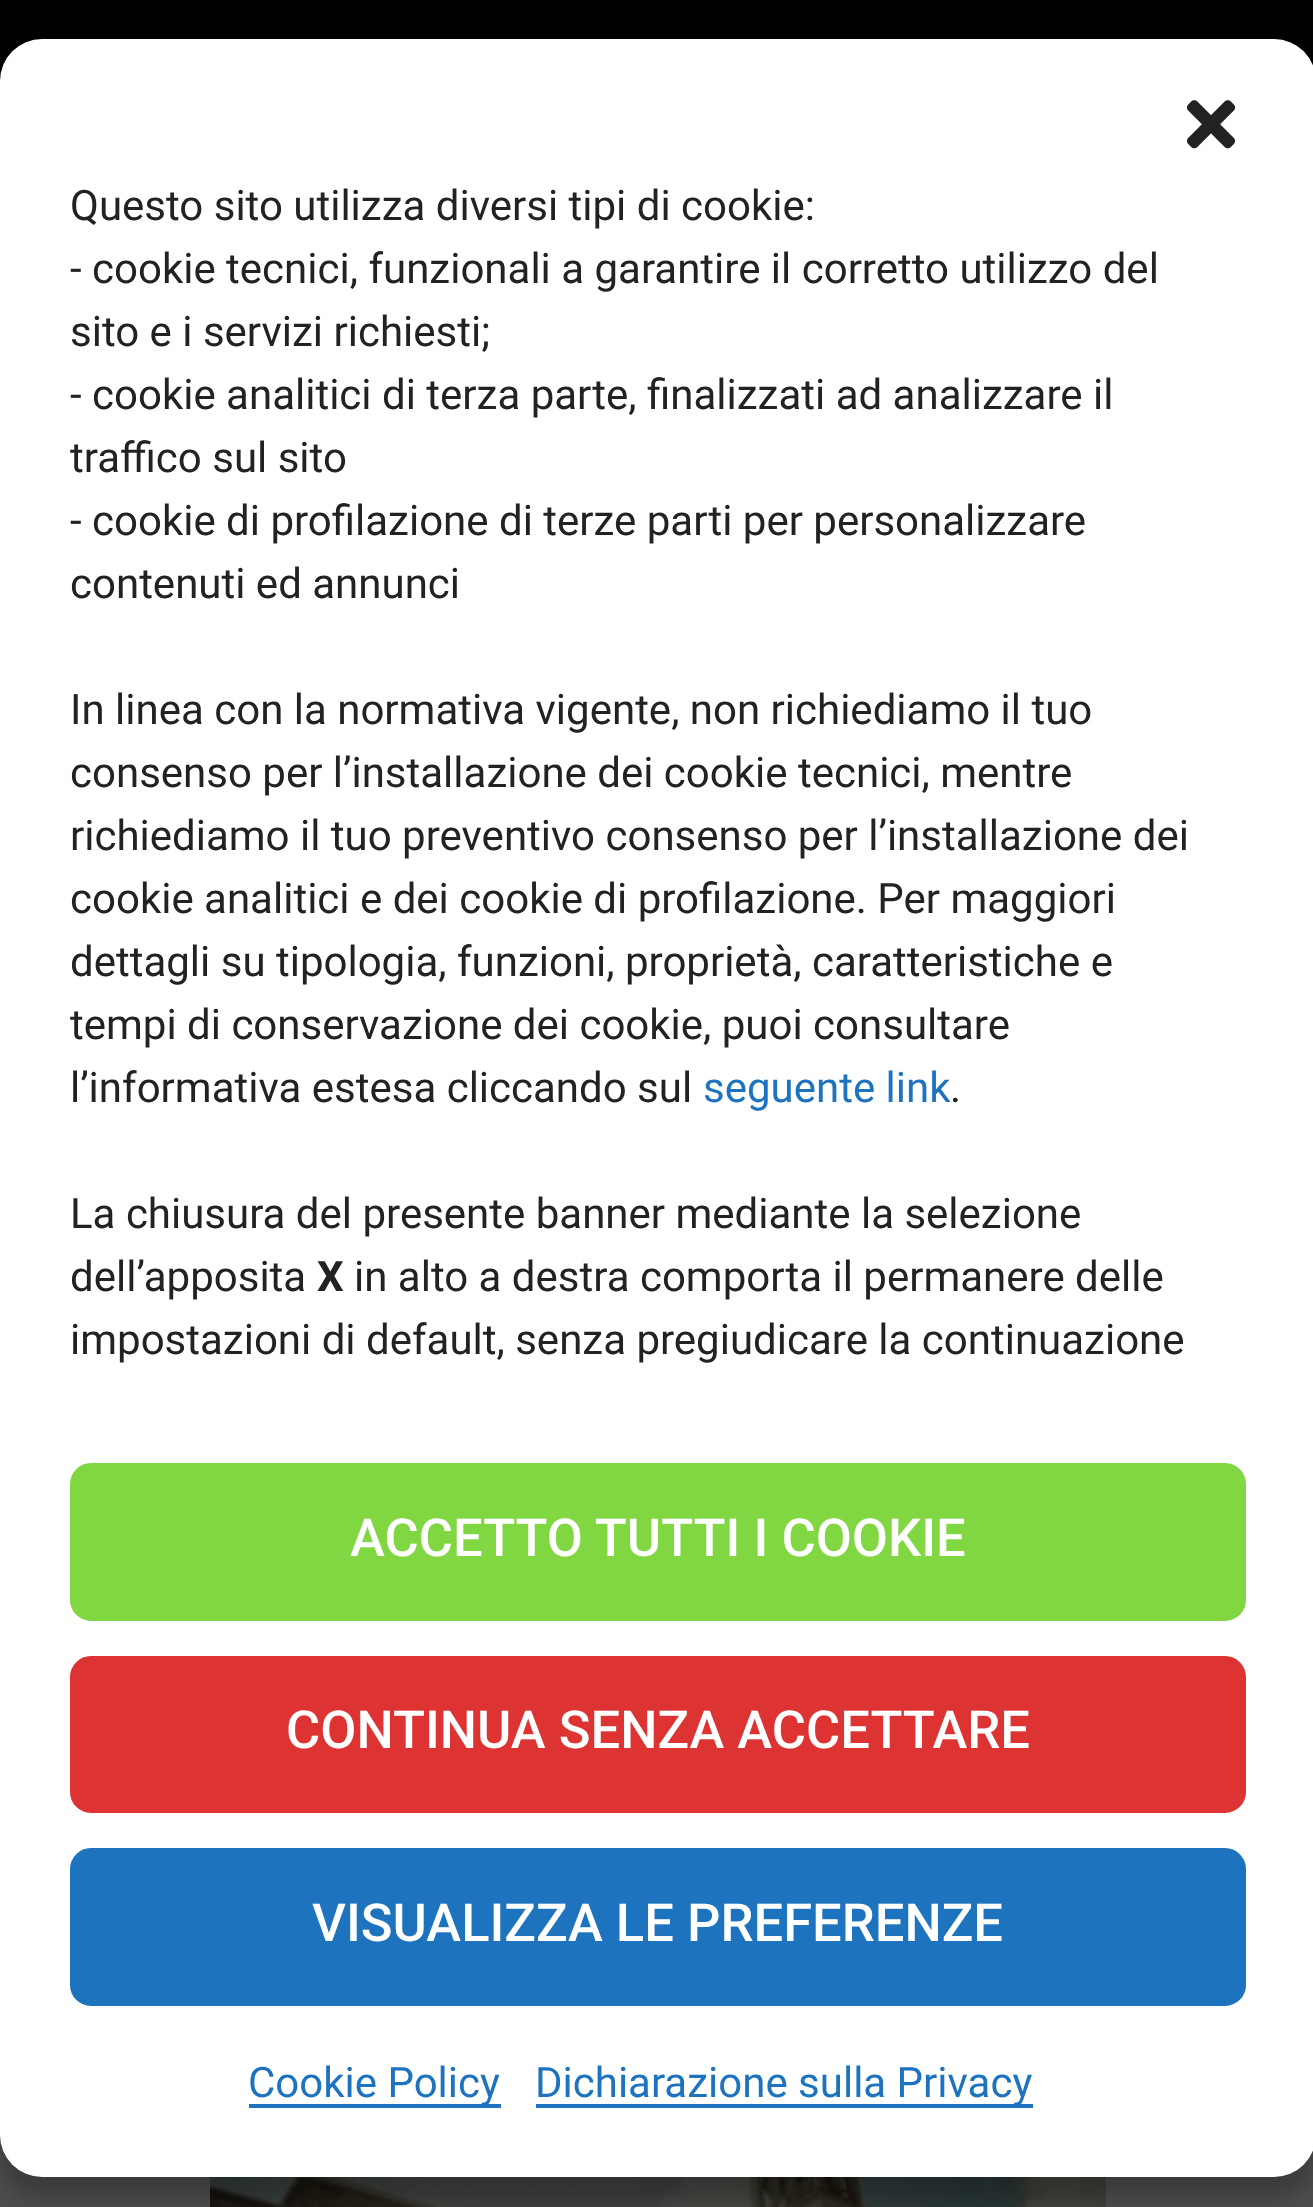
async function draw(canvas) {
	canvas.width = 1313;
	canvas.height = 2207;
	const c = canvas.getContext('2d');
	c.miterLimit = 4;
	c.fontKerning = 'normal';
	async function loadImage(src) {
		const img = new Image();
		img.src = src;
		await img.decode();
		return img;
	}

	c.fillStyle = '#4d4d4d';
	c.fillRect(0, 0, 1313, 2207);
	c.fillStyle = '#000';
	c.fillRect(0, 0, 1313, 81);
	c.drawImage(await loadImage('img2.png'), 210, 2177, 896, 30);
	c.fillStyle = '#0000003b';
	c.filter = 'blur(10.5px)';
	c.beginPath();
	c.roundRect(0, 60, 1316, 2138, 42);
	c.fill();
	c.filter = 'none';
	c.fillStyle = '#fff';
	c.beginPath();
	c.roundRect(0, 39, 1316, 2138, 42);
	c.fill();
	c.drawImage(await loadImage('img1.png'), 1186, 100, 50, 49);
	c.font = '42px Roboto';
	c.fillStyle = '#222';
	for (const [text, x, y] of [
		['Questo sito utilizza diversi tipi di cookie:', 70, 220],
		['- cookie tecnici, funzionali a garantire il corretto utilizzo del', 70, 283],
		['sito e i servizi richiesti;', 70, 346],
		['- cookie analitici di terza parte, finalizzati ad analizzare il', 70, 409],
		['traffico sul sito', 70, 472],
		['- cookie di profilazione di terze parti per personalizzare', 70, 535],
		['contenuti ed annunci', 70, 598],
		['In linea con la normativa vigente, non richiediamo il tuo', 70, 724],
		['consenso per l’installazione dei cookie tecnici, mentre', 70, 787],
		['richiediamo il tuo preventivo consenso per l’installazione dei', 70, 850],
		['cookie analitici e dei cookie di profilazione. Per maggiori', 70, 913],
		['dettagli su tipologia, funzioni, proprietà, caratteristiche e', 70, 976],
		['tempi di conservazione dei cookie, puoi consultare', 70, 1039],
		['l’informativa estesa cliccando sul', 70, 1102],
	]) {
		c.fillText(text, x, y);
	}
	c.fillStyle = '#1e73be';
	c.fillText('seguente link', 703, 1102);
	c.fillStyle = '#222';
	for (const [text, x, y] of [
		['.', 950, 1102],
		['La chiusura del presente banner mediante la selezione', 70, 1228],
		['dell’apposita', 70, 1291],
	]) {
		c.fillText(text, x, y);
	}
	c.font = 'bold 42px Roboto';
	c.fillText('X', 317, 1291);
	c.font = '42px Roboto';
	c.fillText('in alto a destra comporta il permanere delle', 354, 1291);
	c.fillText('impostazioni di default, senza pregiudicare la continuazione', 70, 1354);
	c.fillStyle = '#81d742';
	c.beginPath();
	c.roundRect(72, 1465, 1172, 154, 19);
	c.fill();
	c.strokeStyle = '#81d742';
	c.lineWidth = 4;
	c.stroke();
	c.font = '500 52.5px Roboto';
	c.fillStyle = '#fff';
	c.fillText('ACCETTO TUTTI I COOKIE', 350, 1556);
	c.fillStyle = '#d33';
	c.beginPath();
	c.roundRect(72, 1658, 1172, 153, 19);
	c.fill();
	c.strokeStyle = '#d33';
	c.stroke();
	c.fillStyle = '#fff';
	c.fillText('CONTINUA SENZA ACCETTARE', 286, 1748);
	c.fillStyle = '#1e73be';
	c.beginPath();
	c.roundRect(72, 1850, 1172, 154, 19);
	c.fill();
	c.strokeStyle = '#1e73be';
	c.stroke();
	c.fillStyle = '#fff';
	c.fillText('VISUALIZZA LE PREFERENZE', 312, 1941);
	c.fillStyle = '#1e73be';
	c.fillRect(249, 2104, 252, 4);
	c.font = '42px Roboto';
	c.fillText('Cookie Policy', 248, 2097);
	c.fillRect(536, 2104, 497, 4);
	c.fillText('Dichiarazione sulla Privacy', 535, 2097);
}

draw(document.querySelector('canvas'));
